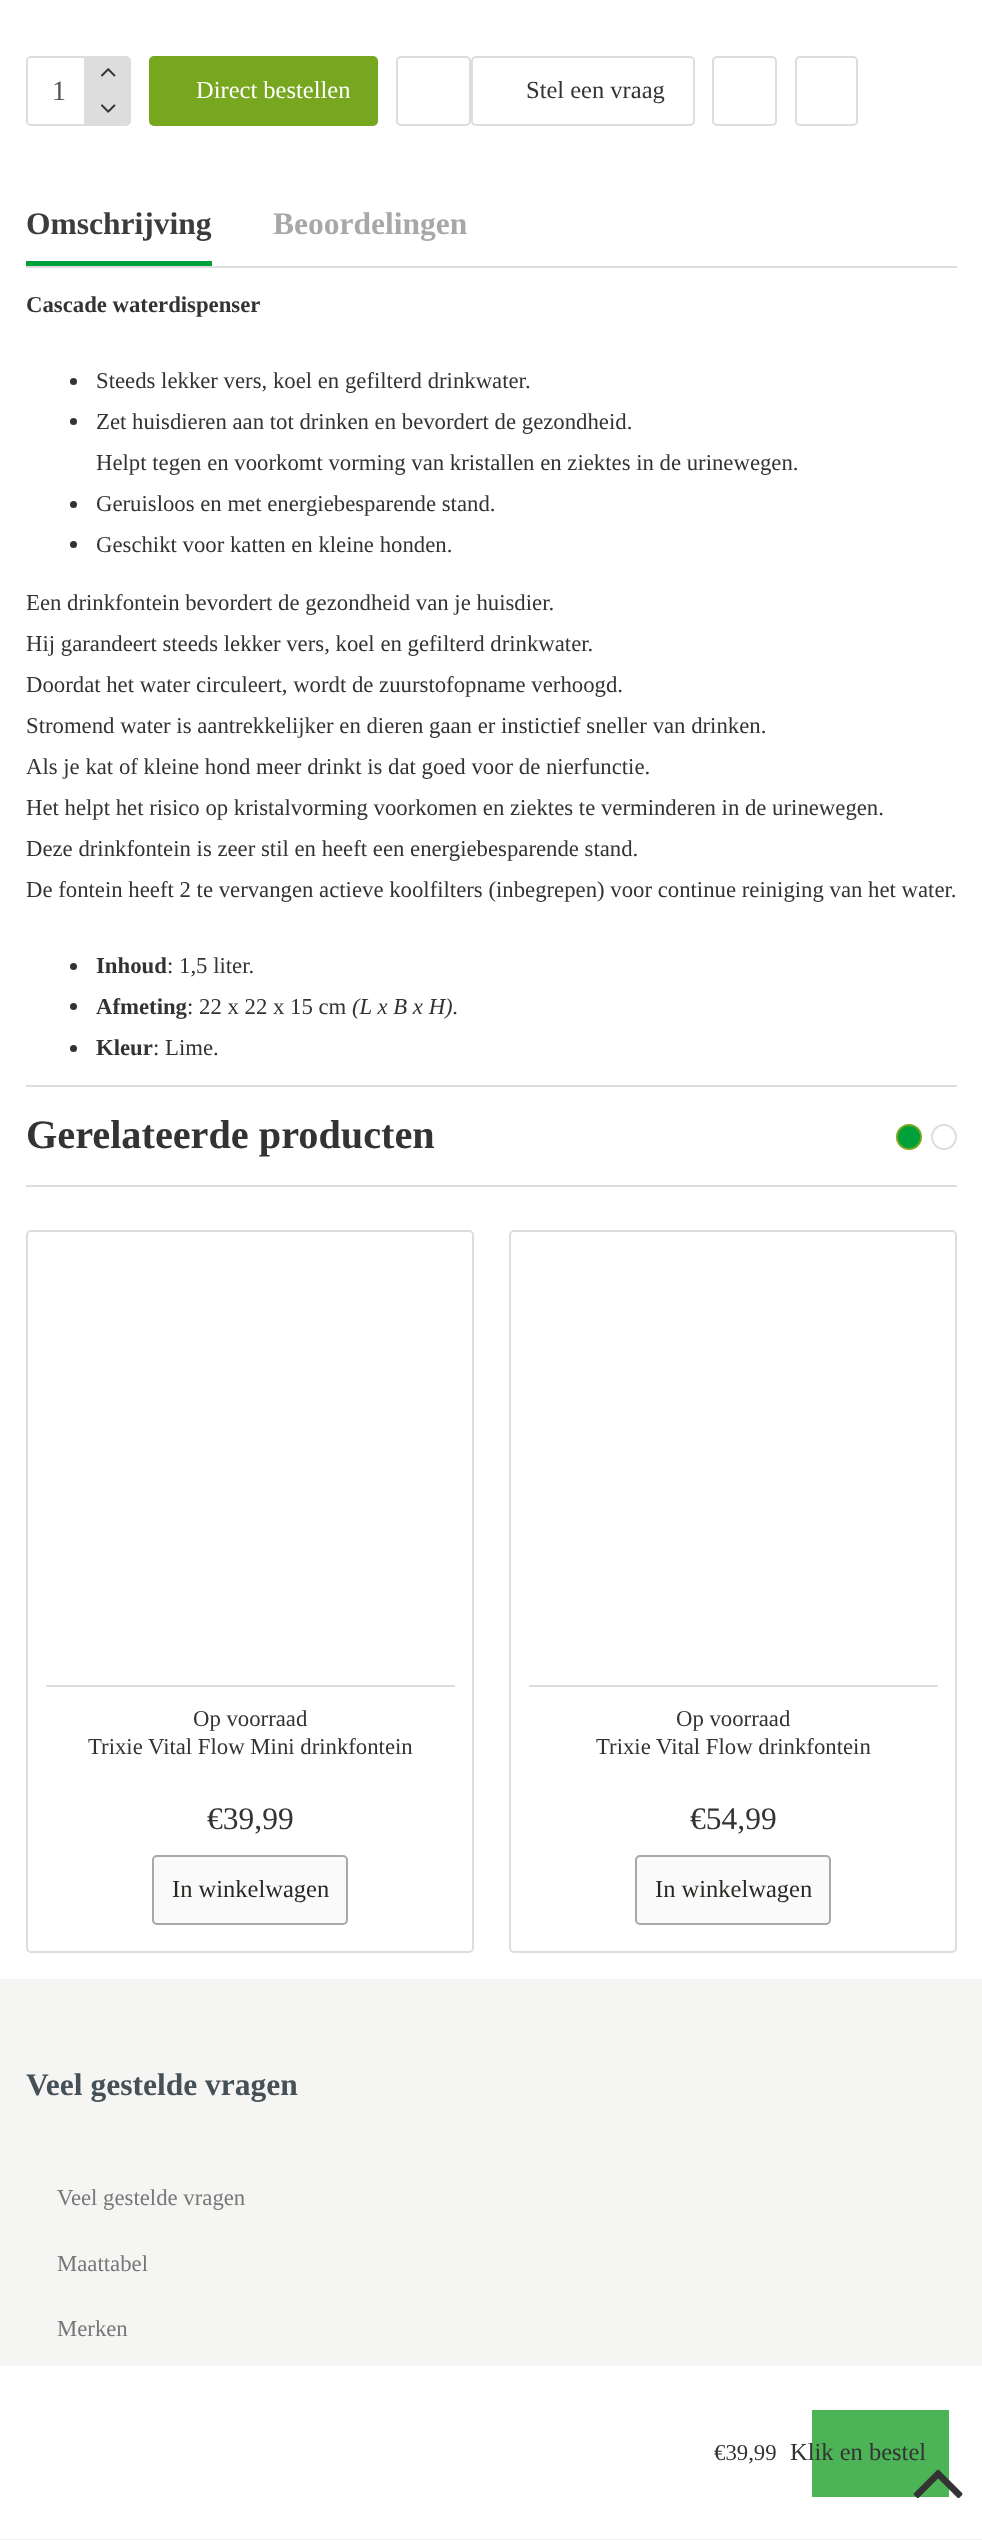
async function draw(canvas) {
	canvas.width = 982;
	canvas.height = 2540;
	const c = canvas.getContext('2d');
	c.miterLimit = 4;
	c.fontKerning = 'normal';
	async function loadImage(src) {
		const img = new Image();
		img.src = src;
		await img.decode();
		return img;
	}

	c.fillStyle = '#fff';
	c.fillRect(0, 0, 982, 2540);
	c.beginPath();
	c.roundRect(27, 57, 103, 68, 4);
	c.strokeStyle = '#ddd';
	c.lineWidth = 2;
	c.stroke();
	c.save();
	c.beginPath();
	c.roundRect(28, 58, 102, 66, 4);
	c.clip();
	c.beginPath();
	c.roundRect(28, 58, 102, 66, 5);
	c.fill();
	c.restore();
	c.font = '28px Liberation Serif';
	c.fillStyle = '#555';
	c.fillText('1', 52, 100);
	c.fillStyle = '#ddd';
	c.fillRect(84, 58, 2, 66);
	c.beginPath();
	c.roundRect(86, 58, 44, 31, [0, 4, 0, 0]);
	c.fill();
	c.fillRect(86, 89, 44, 2);
	c.drawImage(await loadImage('img1.png'), 100, 68, 16, 9);
	c.beginPath();
	c.roundRect(86, 91, 44, 33, [0, 0, 4, 0]);
	c.fill();
	c.drawImage(await loadImage('img2.png'), 100, 104, 16, 9);
	c.fillStyle = '#77a61f';
	c.beginPath();
	c.roundRect(149, 56, 229, 70, 5);
	c.fill();
	c.font = '24.5px Liberation Serif';
	c.fillStyle = '#fff';
	c.fillText('Direct bestellen', 196, 98);
	c.beginPath();
	c.roundRect(397, 57, 73, 68, 4);
	c.stroke();
	c.beginPath();
	c.roundRect(472, 57, 222, 68, 4);
	c.stroke();
	c.fillStyle = '#333';
	c.fillText('Stel een vraag', 526, 98);
	c.beginPath();
	c.roundRect(713, 57, 63, 68, 4);
	c.stroke();
	c.beginPath();
	c.roundRect(796, 57, 61, 68, 4);
	c.stroke();
	for (const [x, y, w, h, color] of [
		[26, 1085, 931, 2, '#ddd'],
		[26, 266, 931, 2, '#ddd'],
		[26, 261, 186, 5, '#00a13a'],
	]) {
		c.fillStyle = color;
		c.fillRect(x, y, w, h);
	}
	c.font = 'bold 31.5px Liberation Serif';
	c.fillStyle = '#3c3c3b';
	c.fillText('Omschrijving', 26, 234);
	c.fillStyle = '#a8a8a8';
	c.fillText('Beoordelingen', 273, 234);
	c.font = 'bold 22.75px Liberation Serif';
	c.fillStyle = '#333';
	c.fillText('Cascade waterdispenser', 26, 312);
	c.beginPath();
	c.arc(73.5, 381.5, 3.5, 0, 2 * Math.PI);
	c.fill();
	c.font = '22.75px Liberation Serif';
	c.fillText('Steeds lekker vers, koel en gefilterd drinkwater.', 96, 388);
	c.beginPath();
	c.arc(73.5, 421.5, 3.5, 0, 2 * Math.PI);
	c.fill();
	c.fillText('Zet huisdieren aan tot drinken en bevordert de gezondheid.', 96, 429);
	c.fillText('Helpt tegen en voorkomt vorming van kristallen en ziektes in de urinewegen.', 96, 470);
	c.beginPath();
	c.arc(73.5, 504.5, 3.5, 0, 2 * Math.PI);
	c.fill();
	c.fillText('Geruisloos en met energiebesparende stand.', 96, 511);
	c.beginPath();
	c.arc(73.5, 544.5, 3.5, 0, 2 * Math.PI);
	c.fill();
	for (const [text, x, y] of [
		['Geschikt voor katten en kleine honden.', 96, 552],
		['Een drinkfontein bevordert de gezondheid van je huisdier.', 26, 610],
		['Hij garandeert steeds lekker vers, koel en gefilterd drinkwater.', 26, 651],
		['Doordat het water circuleert, wordt de zuurstofopname verhoogd.', 26, 692],
		['Stromend water is aantrekkelijker en dieren gaan er instictief sneller van drinken.', 26, 733],
		['Als je kat of kleine hond meer drinkt is dat goed voor de nierfunctie.', 26, 774],
		['Het helpt het risico op kristalvorming voorkomen en ziektes te verminderen in de urinewegen.', 26, 815],
		['Deze drinkfontein is zeer stil en heeft een energiebesparende stand.', 26, 856],
		['De fontein heeft 2 te vervangen actieve koolfilters (inbegrepen) voor continue reiniging van het water.', 26, 897],
	]) {
		c.fillText(text, x, y);
	}
	c.beginPath();
	c.arc(73.5, 966.5, 3.5, 0, 2 * Math.PI);
	c.fill();
	c.font = 'bold 22.75px Liberation Serif';
	c.fillText('Inhoud', 96, 973);
	c.font = '22.75px Liberation Serif';
	c.fillText(': 1,5 liter.', 167, 973);
	c.beginPath();
	c.arc(73.5, 1006.5, 3.5, 0, 2 * Math.PI);
	c.fill();
	c.font = 'bold 22.75px Liberation Serif';
	c.fillText('Afmeting', 96, 1014);
	c.font = '22.75px Liberation Serif';
	c.fillText(': 22 x 22 x 15 cm', 187, 1014);
	c.font = 'italic 22.75px Liberation Serif';
	c.fillText('(L x B x H).', 352, 1014);
	c.beginPath();
	c.arc(73.5, 1048.5, 3.5, 0, 2 * Math.PI);
	c.fill();
	c.font = 'bold 22.75px Liberation Serif';
	c.fillText('Kleur', 96, 1055);
	c.font = '22.75px Liberation Serif';
	c.fillText(': Lime.', 153, 1055);
	c.fillStyle = '#ddd';
	c.fillRect(26, 1185, 931, 2);
	c.font = 'bold 40.25px Liberation Serif';
	c.fillStyle = '#333';
	c.fillText('Gerelateerde producten', 26, 1148);
	c.fillStyle = '#00a13a';
	c.beginPath();
	c.arc(909, 1137, 12, 0, 2 * Math.PI);
	c.fill();
	c.strokeStyle = '#77a61f';
	c.stroke();
	c.beginPath();
	c.arc(944, 1137, 12, 0, 2 * Math.PI);
	c.strokeStyle = '#ddd';
	c.stroke();
	c.beginPath();
	c.roundRect(27, 1231, 446, 721, 4);
	c.stroke();
	c.fillStyle = '#ddd';
	c.fillRect(46, 1685, 409, 2);
	c.font = '22.75px Liberation Serif';
	c.fillStyle = '#333';
	c.fillText('Op voorraad', 193, 1726);
	c.fillText('Trixie Vital Flow Mini drinkfontein', 88, 1754);
	c.font = '31.5px Liberation Serif';
	c.fillText('€39,99', 207, 1829);
	c.fillStyle = '#fafafa';
	c.beginPath();
	c.roundRect(153, 1856, 194, 68, 4);
	c.fill();
	c.strokeStyle = '#a8a8a8';
	c.stroke();
	c.font = '24.5px Liberation Serif';
	c.fillStyle = '#272723';
	c.fillText('In winkelwagen', 172, 1897);
	c.beginPath();
	c.roundRect(510, 1231, 446, 721, 4);
	c.strokeStyle = '#ddd';
	c.stroke();
	c.fillStyle = '#ddd';
	c.fillRect(529, 1685, 409, 2);
	c.font = '22.75px Liberation Serif';
	c.fillStyle = '#333';
	c.fillText('Op voorraad', 676, 1726);
	c.fillText('Trixie Vital Flow drinkfontein', 596, 1754);
	c.font = '31.5px Liberation Serif';
	c.fillText('€54,99', 690, 1829);
	c.fillStyle = '#fafafa';
	c.beginPath();
	c.roundRect(636, 1856, 194, 68, 4);
	c.fill();
	c.strokeStyle = '#a8a8a8';
	c.stroke();
	c.font = '24.5px Liberation Serif';
	c.fillStyle = '#272723';
	c.fillText('In winkelwagen', 655, 1897);
	c.fillStyle = '#f5f5f3';
	c.fillRect(0, 1979, 982, 387);
	c.font = 'bold 31.5px Liberation Serif';
	c.fillStyle = '#465157';
	c.fillText('Veel gestelde vragen', 26, 2095);
	c.font = '22.75px Liberation Serif';
	c.fillStyle = '#777';
	for (const [text, x, y] of [
		['Veel gestelde vragen', 57, 2205],
		['Maattabel', 57, 2271],
		['Merken', 57, 2336],
	]) {
		c.fillText(text, x, y);
	}
	c.fillStyle = '#eee';
	c.fillRect(0, 2539, 982, 1);
	c.fillStyle = '#333';
	c.fillText('€39,99', 714, 2460);
	c.fillStyle = '#4cb356';
	c.fillRect(812, 2410, 137, 87);
	c.font = '24.5px Liberation Serif';
	c.fillStyle = '#333';
	c.fillText('Klik en bestel', 790, 2460);
	c.drawImage(await loadImage('img3.png'), 913, 2469, 50, 30);
}

draw(document.querySelector('canvas'));
